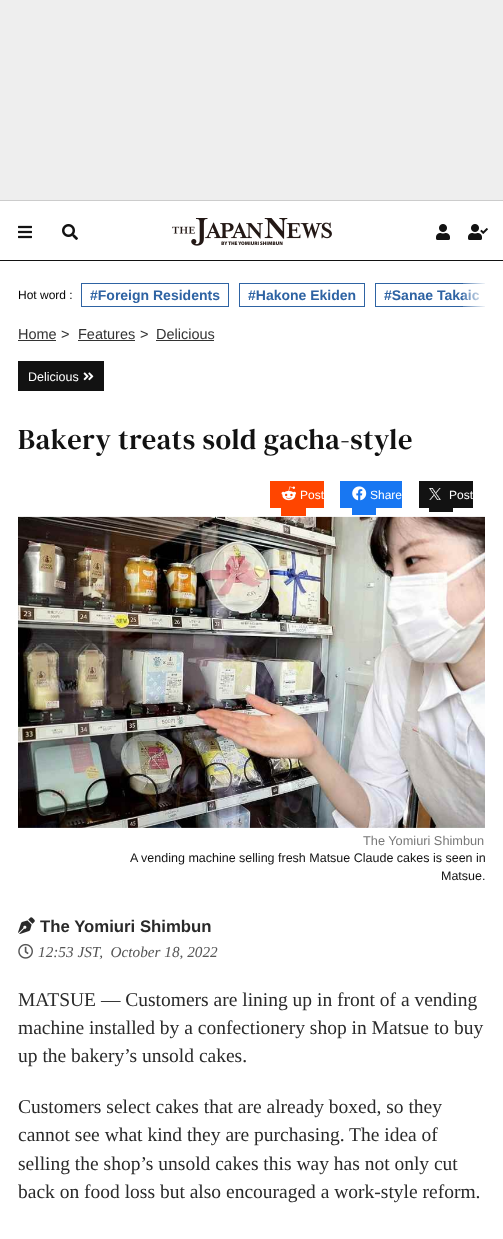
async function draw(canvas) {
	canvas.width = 503;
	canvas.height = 1239;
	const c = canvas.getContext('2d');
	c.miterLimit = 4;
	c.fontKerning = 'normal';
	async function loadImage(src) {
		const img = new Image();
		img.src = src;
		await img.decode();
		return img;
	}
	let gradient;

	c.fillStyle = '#fff';
	c.fillRect(0, 0, 503, 1239);
	for (const [x, y, w, h, color] of [
		[0, 0, 503, 200, '#eee'],
		[0, 200, 503, 1, '#ccc'],
		[0, 260, 503, 1, '#121212'],
	]) {
		c.fillStyle = color;
		c.fillRect(x, y, w, h);
	}
	c.drawImage(await loadImage('img1.png'), 18, 225, 14, 14);
	c.drawImage(await loadImage('img2.png'), 62, 224, 16, 16);
	c.drawImage(await loadImage('img3.png'), 172, 218, 160, 28);
	c.drawImage(await loadImage('img4.png'), 436, 224, 14, 16);
	c.drawImage(await loadImage('img5.png'), 468, 224, 20, 16);
	c.save();
	c.beginPath();
	c.rect(81, 283, 404, 24);
	c.clip();
	c.strokeStyle = '#2e63a3';
	c.strokeRect(375.5, 283.5, 125, 23);
	c.restore();
	c.font = 'bold 14px Liberation Sans';
	c.fillStyle = '#2e63a3';
	c.fillText('#Sanae Takaic', 384, 300);
	gradient = c.createLinearGradient(503, 295, 463, 295);
	gradient.addColorStop(0.4, '#fff');
	gradient.addColorStop(1, '#ffffff2b');
	c.fillStyle = gradient;
	c.fillRect(463, 283, 22, 24);
	c.font = '12px Liberation Sans';
	c.fillStyle = '#000';
	c.fillText('Hot word :', 18, 299);
	c.strokeStyle = '#2e63a3';
	c.strokeRect(81.5, 283.5, 147, 23);
	c.font = 'bold 14px Liberation Sans';
	c.fillStyle = '#2e63a3';
	c.fillText('#Foreign Residents', 90, 300);
	c.strokeRect(239.5, 283.5, 125, 23);
	c.fillText('#Hakone Ekiden', 248, 300);
	c.font = '14.5px Liberation Sans';
	c.fillStyle = '#333';
	c.fillText('Home', 18, 339);
	c.fillRect(18, 340, 38, 1);
	c.fillText('>', 61, 339);
	c.fillText('Features', 78, 339);
	c.fillRect(78, 340, 57, 1);
	c.fillText('>', 140, 339);
	c.fillText('Delicious', 156, 339);
	c.fillRect(156, 340, 58, 1);
	c.fillStyle = '#121212';
	c.fillRect(18, 361, 86, 30);
	c.font = '12.5px Liberation Sans';
	c.fillStyle = '#fff';
	c.fillText('Delicious', 28, 381);
	c.drawImage(await loadImage('img6.png'), 83, 372, 11, 9);
	c.letterSpacing = '0.5px';
	c.font = '28.75px DM Serif Text';
	c.fillStyle = '#121212';
	c.fillText('Bakery treats sold gacha-style', 18, 449);
	c.fillStyle = '#ff4500';
	c.fillRect(270, 481, 54, 27);
	c.fillRect(281, 508, 25, 8);
	c.drawImage(await loadImage('img7.png'), 281, 486, 15, 15);
	c.letterSpacing = '0px';
	c.font = '12px Liberation Sans';
	c.fillStyle = '#fff';
	c.fillText('Post', 300, 499);
	c.fillStyle = '#1877f2';
	c.fillRect(340, 481, 62, 27);
	c.fillRect(352, 508, 24, 7);
	c.drawImage(await loadImage('img8.png'), 352, 486, 15, 15);
	c.fillStyle = '#fff';
	c.fillText('Share', 370, 499);
	c.fillStyle = '#121212';
	c.fillRect(419, 481, 54, 27);
	c.fillRect(429, 508, 24, 4);
	c.drawImage(await loadImage('img9.png'), 429, 488, 12, 12);
	c.fillStyle = '#fff';
	c.fillText('Post', 449, 499);
	c.drawImage(await loadImage('img10.png'), 18, 516, 467, 312);
	c.font = '12.75px Liberation Sans';
	c.fillStyle = '#777';
	c.fillText('The Yomiuri Shimbun', 363, 845);
	c.font = '12.5px Liberation Sans';
	c.fillStyle = '#121212';
	c.fillText('A vending machine selling fresh Matsue Claude cakes is seen in', 130, 862);
	c.fillText('Matsue.', 441, 880);
	c.drawImage(await loadImage('img11.png'), 18, 917, 17, 17);
	c.font = 'bold 16.75px Liberation Sans';
	c.fillStyle = '#2a2a2a';
	c.fillText('The Yomiuri Shimbun', 40, 932);
	c.drawImage(await loadImage('img12.png'), 18, 943, 15, 16);
	c.font = 'italic 15.25px Liberation Serif';
	c.fillStyle = '#555';
	c.fillText('12:53 JST, October 18, 2022', 38, 957);
	c.font = '19.5px Liberation Serif';
	c.fillStyle = '#2a2a2a';
	for (const [text, x, y] of [
		['MATSUE — Customers are lining up in front of a vending', 18, 1006],
		['machine installed by a confectionery shop in Matsue to buy', 18, 1034],
		['up the bakery’s unsold cakes.', 18, 1062],
		['Customers select cakes that are already boxed, so they', 18, 1113],
		['cannot see what kind they are purchasing. The idea of', 18, 1141],
		['selling the shop’s unsold cakes this way has not only cut', 18, 1170],
		['back on food loss but also encouraged a work-style reform.', 18, 1198],
	]) {
		c.fillText(text, x, y);
	}
}

draw(document.querySelector('canvas'));
